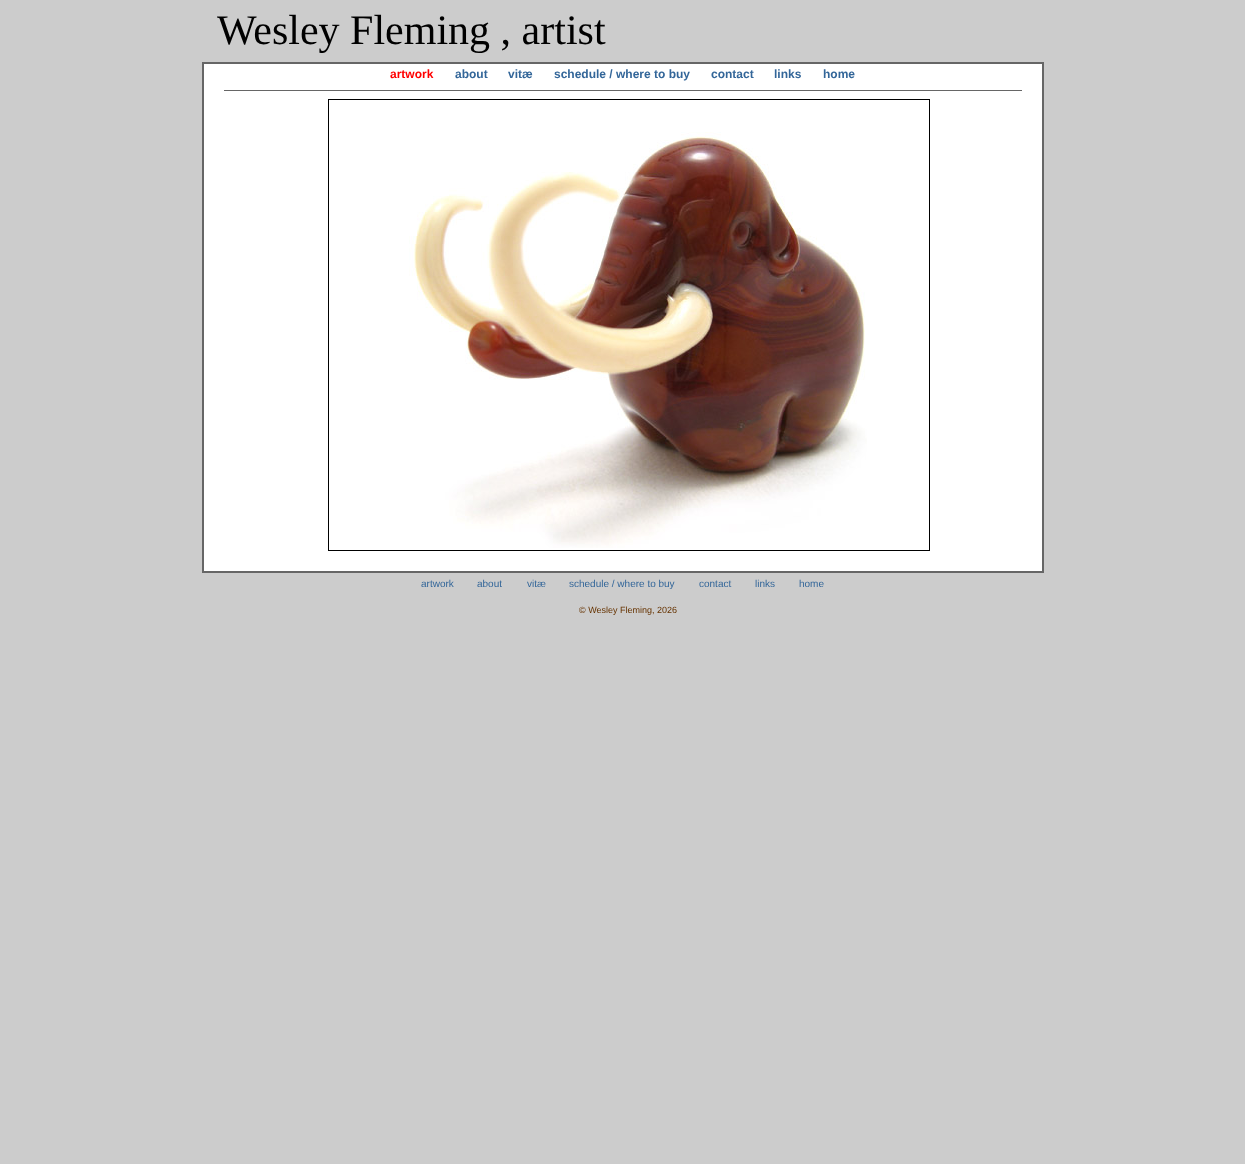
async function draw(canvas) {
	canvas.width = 1245;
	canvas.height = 1164;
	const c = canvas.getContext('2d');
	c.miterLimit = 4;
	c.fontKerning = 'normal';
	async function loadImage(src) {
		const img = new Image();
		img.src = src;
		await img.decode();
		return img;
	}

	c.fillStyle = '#ccc';
	c.fillRect(0, 0, 1245, 1164);
	c.font = '42px Liberation Serif';
	c.fillStyle = '#000';
	c.fillText('Wesley Fleming , artist', 217, 44);
	for (const [x, y, w, h, color] of [
		[202, 62, 842, 2, '#666'],
		[204, 64, 838, 507, '#fff'],
		[202, 64, 2, 509, '#666'],
	]) {
		c.fillStyle = color;
		c.fillRect(x, y, w, h);
	}
	c.font = 'bold 12px Liberation Sans';
	c.fillStyle = '#f00';
	c.fillText('artwork', 390, 78);
	c.fillStyle = '#369';
	for (const [text, x, y] of [
		['about', 455, 78],
		['vitæ', 508, 78],
		['schedule / where to buy', 554, 78],
		['contact', 711, 78],
		['links', 774, 78],
		['home', 823, 78],
	]) {
		c.fillText(text, x, y);
	}
	c.fillStyle = '#666';
	c.fillRect(1042, 64, 2, 507);
	c.fillRect(224, 90, 798, 1);
	c.strokeStyle = '#000';
	c.strokeRect(328.5, 99.5, 601, 451);
	c.drawImage(await loadImage('img1.png'), 409, 132, 458, 416);
	c.fillRect(204, 571, 840, 2);
	c.font = '10px Liberation Sans';
	c.fillStyle = '#369';
	for (const [text, x, y] of [
		['artwork', 421, 587],
		['about', 477, 587],
		['vitæ', 527, 587],
		['schedule / where to buy', 569, 587],
		['contact', 699, 587],
		['links', 755, 587],
		['home', 799, 587],
	]) {
		c.fillText(text, x, y);
	}
	c.font = '9px Liberation Sans';
	c.fillStyle = '#630';
	c.fillText('© Wesley Fleming, 2026', 579, 613);
}

draw(document.querySelector('canvas'));
